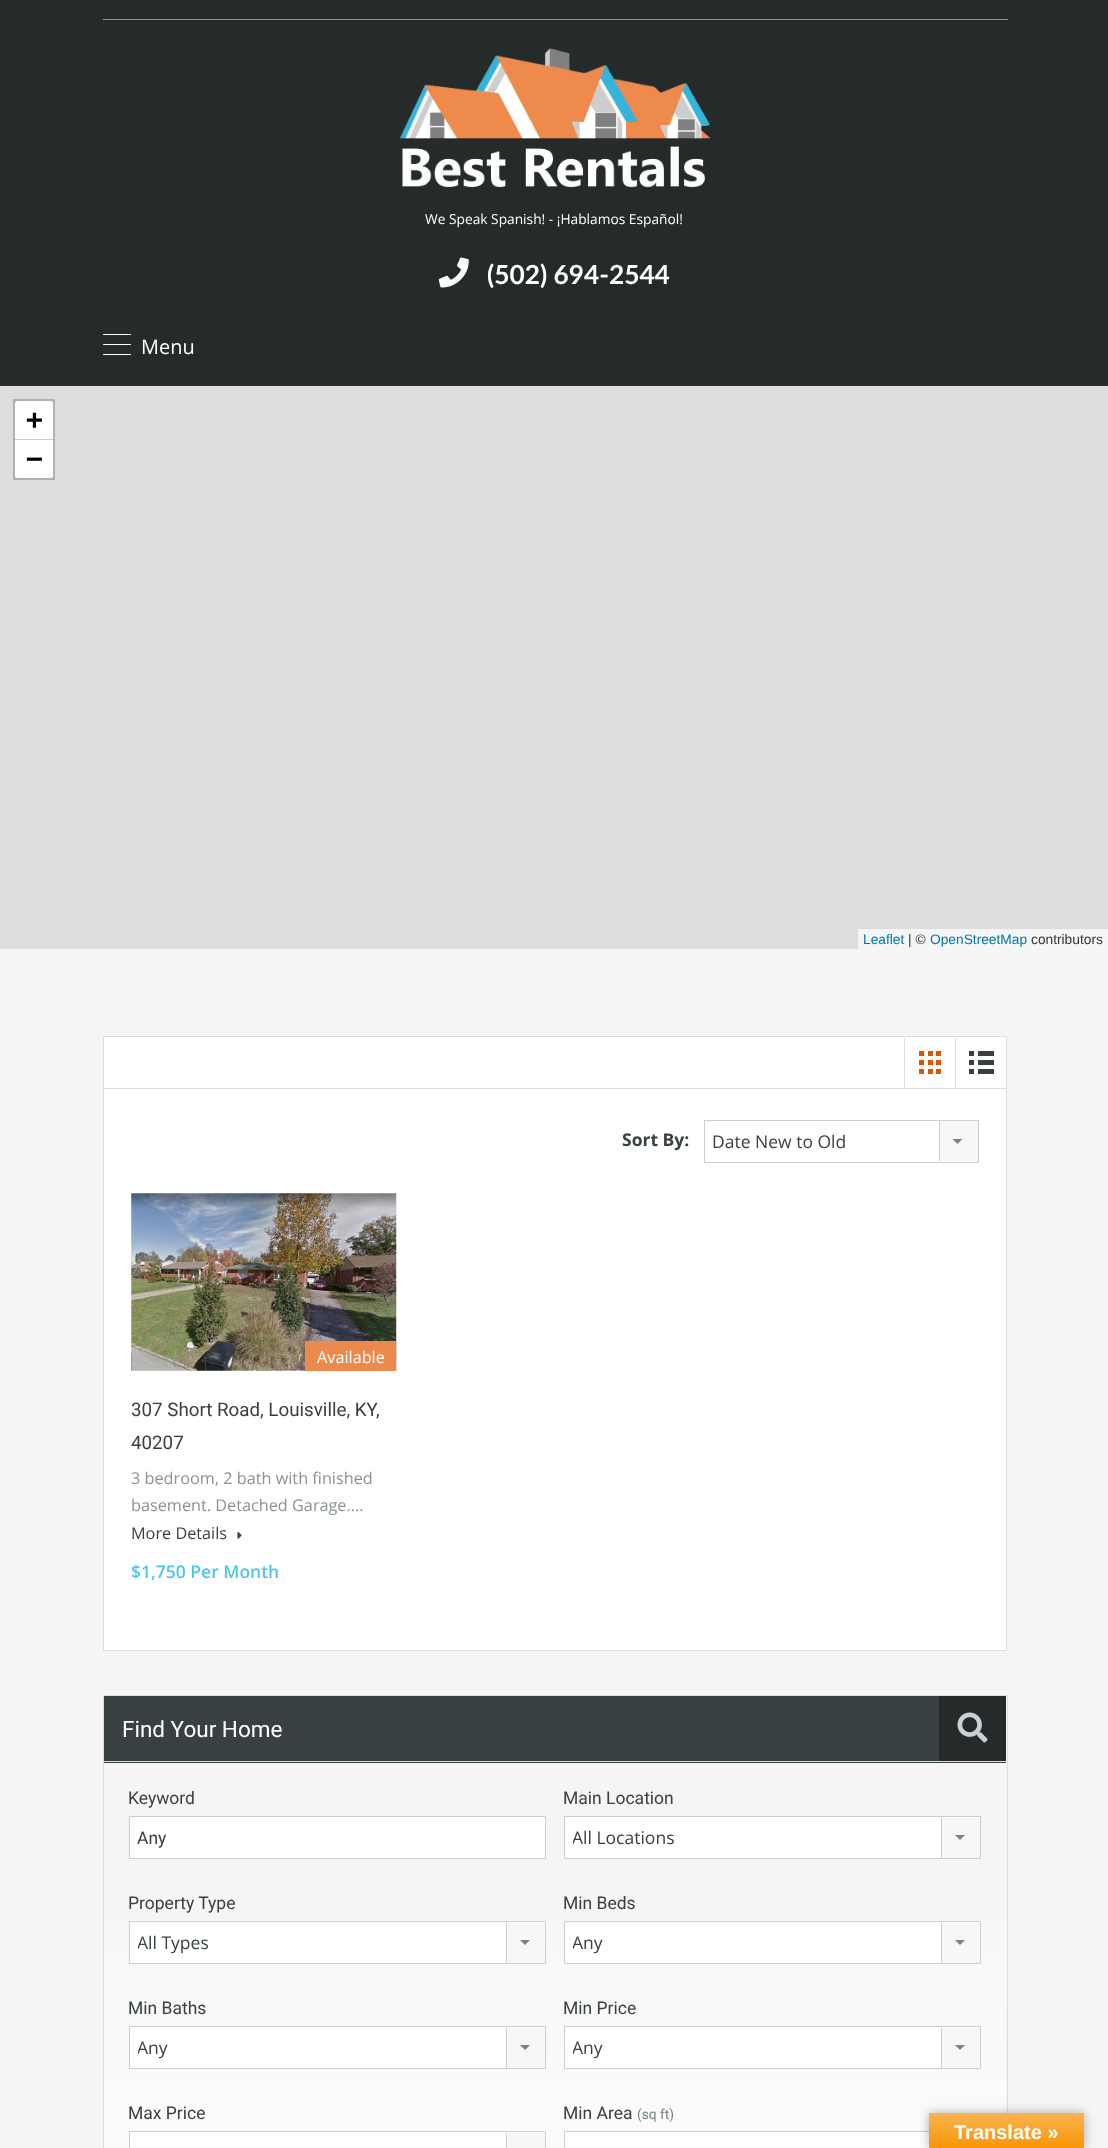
async function draw(canvas) {
	canvas.width = 1108;
	canvas.height = 2148;
	const c = canvas.getContext('2d');
	c.miterLimit = 4;
	c.fontKerning = 'normal';
	async function loadImage(src) {
		const img = new Image();
		img.src = src;
		await img.decode();
		return img;
	}
	let gradient;

	c.fillStyle = '#f5f5f5';
	c.fillRect(0, 0, 1108, 2148);
	c.fillStyle = '#252a2b';
	c.fillRect(0, 0, 1108, 386);
	c.fillStyle = '#37b3d9';
	c.fillRect(103, 19, 905, 1);
	c.drawImage(await loadImage('img1.png'), 400, 48, 311, 140);
	c.font = '13.75px Open Sans';
	c.fillStyle = '#fff';
	c.fillText('We Speak Spanish! - ¡Hablamos Español!', 425, 224);
	c.drawImage(await loadImage('img2.png'), 438, 257, 31, 31);
	c.font = 'bold 26.25px Lato';
	c.fillText('(502) 694-2544', 487, 284);
	c.beginPath();
	c.roundRect(103, 344, 28, 1, 0.5);
	c.fill();
	c.beginPath();
	c.roundRect(103, 334, 28, 1, 0.5);
	c.fill();
	c.beginPath();
	c.roundRect(103, 354, 28, 1, 0.5);
	c.fill();
	c.font = '20px Open Sans';
	c.fillText('Menu', 141, 354);
	c.fillStyle = '#ddd';
	c.fillRect(0, 386, 1108, 563);
	c.strokeStyle = '#b1b1b1';
	c.lineWidth = 3;
	c.strokeRect(14.5, 400.5, 39, 78);
	c.fillStyle = '#fff';
	c.beginPath();
	c.roundRect(15, 401, 38, 39, [2.5, 2.5, 0, 0]);
	c.fill();
	c.fillStyle = '#ccc';
	c.fillRect(15, 439, 38, 1);
	c.font = 'bold 28px DejaVu Sans Mono';
	c.fillStyle = '#000';
	c.fillText('+', 26, 429);
	c.fillStyle = '#fff';
	c.beginPath();
	c.roundRect(15, 440, 38, 38, [0, 0, 2.5, 2.5]);
	c.fill();
	c.fillStyle = '#000';
	c.fillText('−', 26, 468);
	c.fillStyle = '#f5f5f5';
	c.fillRect(858, 929, 250, 20);
	c.font = '13.75px Liberation Sans';
	c.fillStyle = '#0078a8';
	c.fillText('Leaflet', 863, 944);
	c.fillStyle = '#333';
	c.fillText('| ©', 908, 944);
	c.fillStyle = '#0078a8';
	c.fillText('OpenStreetMap', 930, 944);
	c.fillStyle = '#333';
	c.fillText('contributors', 1031, 944);
	for (const [x, y, w, h, color] of [
		[1006, 1036, 1, 615, '#dedede'],
		[103, 1036, 1, 615, '#dedede'],
		[104, 1037, 902, 613, '#fff'],
		[104, 1036, 902, 1, '#dedede'],
		[104, 1650, 902, 1, '#dedede'],
		[104, 1088, 902, 1, '#dedede'],
		[904, 1038, 1, 50, '#dedede'],
	]) {
		c.fillStyle = color;
		c.fillRect(x, y, w, h);
	}
	c.drawImage(await loadImage('img3.png'), 919, 1051, 22, 23);
	c.fillRect(955, 1038, 1, 50);
	c.drawImage(await loadImage('img4.png'), 969, 1051, 25, 23);
	c.font = 'bold 17.5px Open Sans';
	c.fillStyle = '#394041';
	c.fillText('Sort By:', 622, 1146);
	c.strokeStyle = '#cdcdcd';
	c.lineWidth = 1;
	c.strokeRect(704.5, 1120.5, 274, 42);
	c.font = '17.5px Open Sans';
	c.fillText('Date New to Old', 712, 1148);
	c.fillStyle = '#f7f7f7';
	c.fillRect(940, 1121, 38, 40);
	c.fillStyle = '#cdcdcd';
	c.fillRect(939, 1121, 1, 40);
	c.fillStyle = '#808080';
	c.beginPath();
	c.moveTo(952.5, 1139);
	c.lineTo(962.5, 1139);
	c.lineTo(957.5, 1144);
	c.closePath();
	c.fill();
	c.drawImage(await loadImage('img5.png'), 131, 1193, 266, 178);
	c.fillStyle = '#ec894d';
	c.fillRect(305, 1341, 91, 30);
	c.font = '16.25px Open Sans';
	c.fillStyle = '#fff';
	c.fillText('Available', 317, 1363);
	c.font = '18.75px Roboto';
	c.fillStyle = '#394041';
	c.fillText('307 Short Road, Louisville, KY,', 131, 1416);
	c.fillText('40207', 131, 1449);
	c.font = '16.25px Open Sans';
	c.fillStyle = '#8b9293';
	c.fillText('3 bedroom, 2 bath with finished', 131, 1484);
	c.fillText('basement. Detached Garage.…', 131, 1511);
	c.fillStyle = '#394041';
	c.fillText('More Details', 131, 1539);
	c.drawImage(await loadImage('img6.png'), 237, 1531, 5, 8);
	c.font = '600 17.5px Open Sans';
	c.fillStyle = '#4dc7ec';
	c.fillText('$1,750 Per Month', 131, 1578);
	c.strokeStyle = '#dedede';
	c.strokeRect(103.5, 1695.5, 904, 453);
	c.fillStyle = '#394041';
	c.fillRect(104, 1696, 902, 67);
	c.fillStyle = '#dedede';
	c.fillRect(104, 1761, 902, 1);
	c.font = '22.5px Roboto';
	c.fillStyle = '#fff';
	c.fillText('Find Your Home', 122, 1737);
	c.fillStyle = '#252a2b';
	c.fillRect(939, 1696, 67, 65);
	c.drawImage(await loadImage('img7.png'), 957, 1712, 31, 31);
	gradient = c.createLinearGradient(555, 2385, 555, 1763);
	gradient.addColorStop(0, '#fff');
	gradient.addColorStop(1, '#f5f5f5');
	c.fillStyle = gradient;
	c.fillRect(104, 1918, 902, 230);
	c.font = '17.5px Roboto';
	c.fillStyle = '#394041';
	c.fillText('Keyword', 128, 1804);
	c.fillStyle = '#fff';
	c.beginPath();
	c.rect(129.5, 1816.5, 416, 42);
	c.fill();
	c.strokeStyle = '#cdcdcd';
	c.stroke();
	c.fillStyle = '#394041';
	c.fillText('Any', 137, 1844);
	c.fillText('Main Location', 563, 1804);
	c.fillStyle = '#fff';
	c.beginPath();
	c.rect(564.5, 1816.5, 416, 42);
	c.fill();
	c.stroke();
	c.save();
	c.beginPath();
	c.rect(573, 1825, 392, 25);
	c.clip();
	c.font = '17.5px Open Sans';
	c.fillStyle = '#394041';
	c.fillText('All Locations', 572, 1844);
	c.restore();
	c.fillStyle = '#f7f7f7';
	c.fillRect(942, 1818, 38, 40);
	c.fillStyle = '#cdcdcd';
	c.fillRect(941, 1818, 1, 40);
	c.fillStyle = '#808080';
	c.beginPath();
	c.moveTo(955, 1835);
	c.lineTo(965, 1835);
	c.lineTo(960, 1840);
	c.closePath();
	c.fill();
	c.fillStyle = '#394041';
	c.fillText('Property Type', 128, 1909);
	c.fillStyle = '#fff';
	c.beginPath();
	c.rect(129.5, 1921.5, 416, 42);
	c.fill();
	c.stroke();
	c.save();
	c.beginPath();
	c.rect(138, 1930, 392, 25);
	c.clip();
	c.font = '17.5px Open Sans';
	c.fillStyle = '#394041';
	c.fillText('All Types', 137, 1949);
	c.restore();
	c.fillStyle = '#f7f7f7';
	c.fillRect(507, 1923, 38, 40);
	c.fillStyle = '#cdcdcd';
	c.fillRect(506, 1923, 1, 40);
	c.fillStyle = '#808080';
	c.beginPath();
	c.moveTo(520, 1940);
	c.lineTo(530, 1940);
	c.lineTo(525, 1945);
	c.closePath();
	c.fill();
	c.fillStyle = '#394041';
	c.fillText('Min Beds', 563, 1909);
	c.fillStyle = '#fff';
	c.beginPath();
	c.rect(564.5, 1921.5, 416, 42);
	c.fill();
	c.stroke();
	c.save();
	c.beginPath();
	c.rect(573, 1930, 392, 25);
	c.clip();
	c.font = '17.5px Open Sans';
	c.fillStyle = '#394041';
	c.fillText('Any', 572, 1949);
	c.restore();
	c.fillStyle = '#f7f7f7';
	c.fillRect(942, 1923, 38, 40);
	c.fillStyle = '#cdcdcd';
	c.fillRect(941, 1923, 1, 40);
	c.fillStyle = '#808080';
	c.beginPath();
	c.moveTo(955, 1940);
	c.lineTo(965, 1940);
	c.lineTo(960, 1945);
	c.closePath();
	c.fill();
	c.fillStyle = '#394041';
	c.fillText('Min Baths', 128, 2014);
	c.fillStyle = '#fff';
	c.beginPath();
	c.rect(129.5, 2026.5, 416, 42);
	c.fill();
	c.stroke();
	c.save();
	c.beginPath();
	c.rect(138, 2035, 392, 25);
	c.clip();
	c.font = '17.5px Open Sans';
	c.fillStyle = '#394041';
	c.fillText('Any', 137, 2054);
	c.restore();
	c.fillStyle = '#f7f7f7';
	c.fillRect(507, 2028, 38, 40);
	c.fillStyle = '#cdcdcd';
	c.fillRect(506, 2028, 1, 40);
	c.fillStyle = '#808080';
	c.beginPath();
	c.moveTo(520, 2045);
	c.lineTo(530, 2045);
	c.lineTo(525, 2050);
	c.closePath();
	c.fill();
	c.fillStyle = '#394041';
	c.fillText('Min Price', 563, 2014);
	c.fillStyle = '#fff';
	c.beginPath();
	c.rect(564.5, 2026.5, 416, 42);
	c.fill();
	c.stroke();
	c.save();
	c.beginPath();
	c.rect(573, 2035, 392, 25);
	c.clip();
	c.font = '17.5px Open Sans';
	c.fillStyle = '#394041';
	c.fillText('Any', 572, 2054);
	c.restore();
	c.fillStyle = '#f7f7f7';
	c.fillRect(942, 2028, 38, 40);
	c.fillStyle = '#cdcdcd';
	c.fillRect(941, 2028, 1, 40);
	c.fillStyle = '#808080';
	c.beginPath();
	c.moveTo(955, 2045);
	c.lineTo(965, 2045);
	c.lineTo(960, 2050);
	c.closePath();
	c.fill();
	c.fillStyle = '#394041';
	c.fillText('Max Price', 128, 2119);
	c.fillStyle = '#fff';
	c.beginPath();
	c.rect(129.5, 2131.5, 416, 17);
	c.fill();
	c.stroke();
	c.fillStyle = '#f7f7f7';
	c.fillRect(507, 2133, 38, 15);
	c.fillStyle = '#cdcdcd';
	c.fillRect(506, 2133, 1, 15);
	c.fillStyle = '#394041';
	c.fillText('Min Area', 563, 2119);
	c.font = '13.75px Roboto';
	c.fillStyle = '#758385';
	c.fillText('(sq ft)', 637, 2119);
	c.fillStyle = '#fff';
	c.fillRect(565, 2132, 364, 16);
	c.strokeRect(564.5, 2131.5, 416, 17);
	c.fillStyle = '#0000004d';
	c.filter = 'blur(5.5px)';
	c.beginPath();
	c.rect(929, 2113, 155, 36);
	c.fill();
	c.filter = 'none';
	gradient = c.createLinearGradient(1006, 2113, 1006, 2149);
	gradient.addColorStop(0, '#fbb450');
	gradient.addColorStop(1, '#f89406');
	c.fillStyle = gradient;
	c.fillRect(929, 2113, 155, 35);
	c.font = 'bold 20px Liberation Sans';
	c.fillStyle = '#fff';
	c.fillText('Translate »', 954, 2139);
}

draw(document.querySelector('canvas'));
